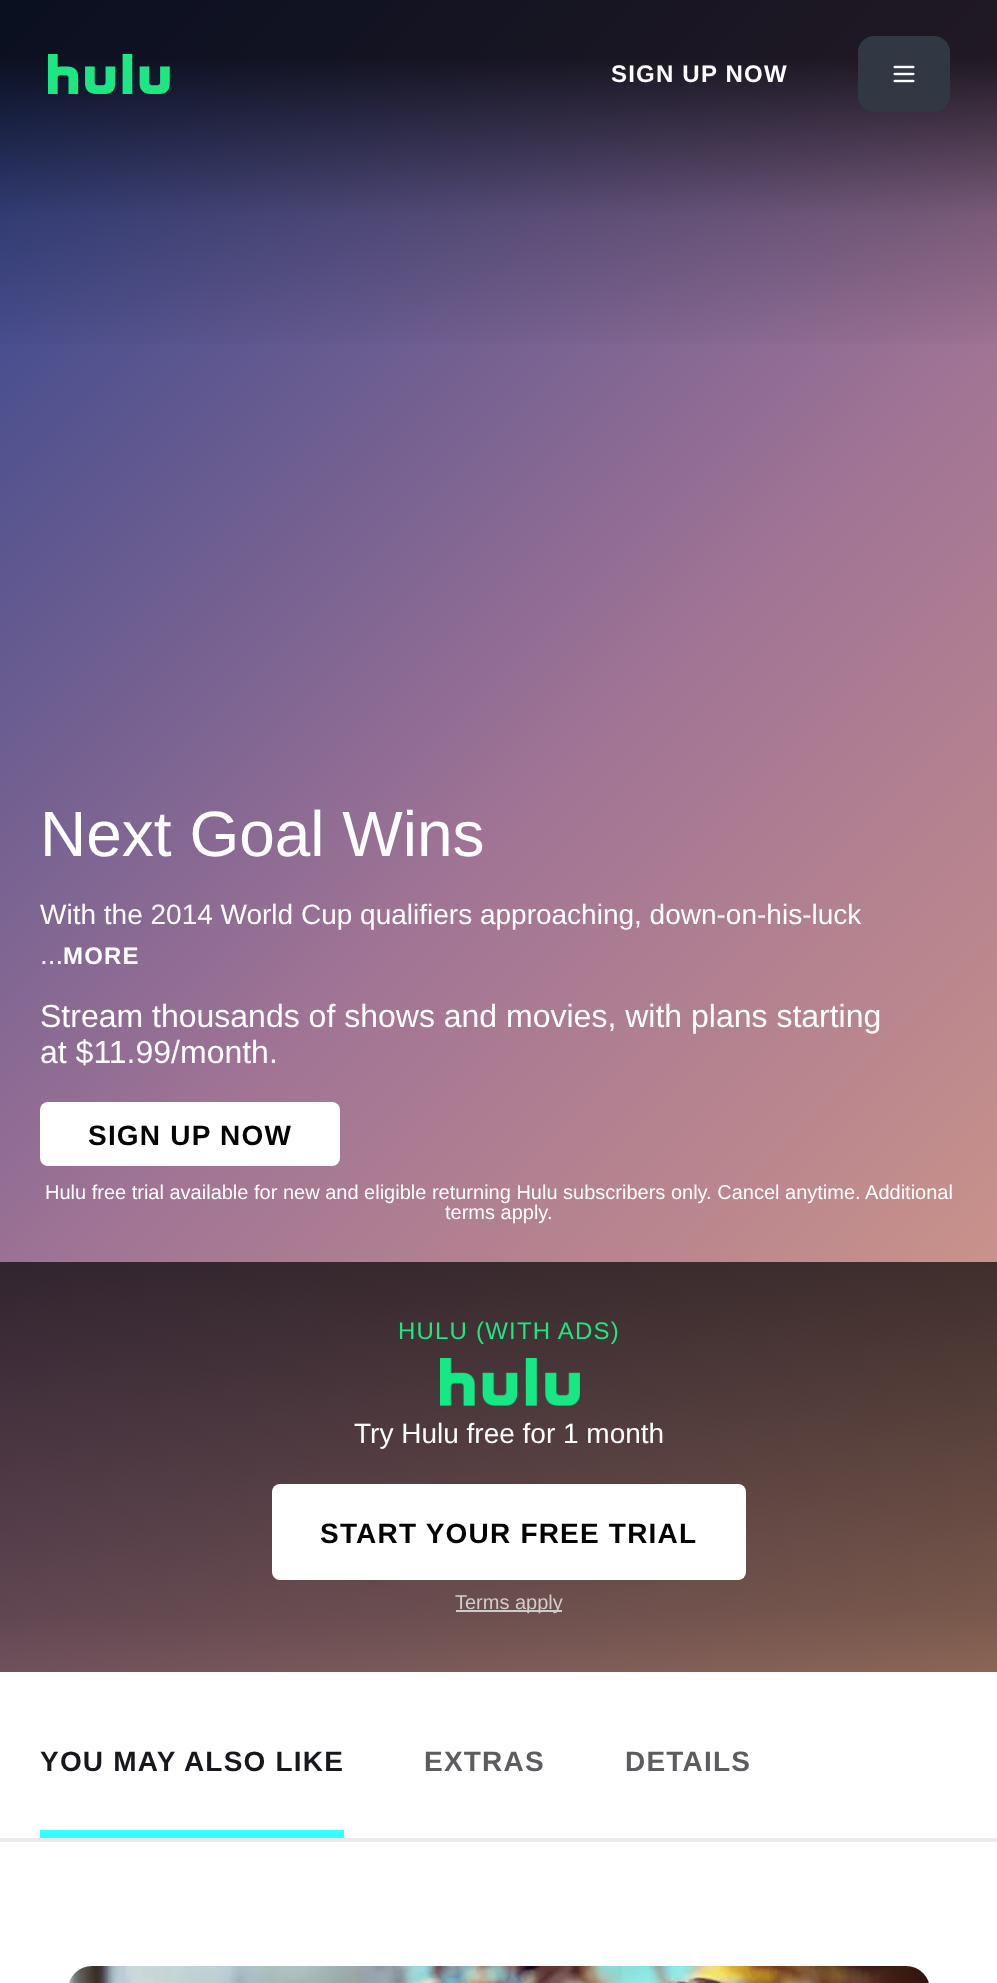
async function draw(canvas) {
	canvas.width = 997;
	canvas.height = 1983;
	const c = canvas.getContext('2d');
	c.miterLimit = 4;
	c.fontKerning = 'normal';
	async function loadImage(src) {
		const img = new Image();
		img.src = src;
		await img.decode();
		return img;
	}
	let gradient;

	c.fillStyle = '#e8eaed';
	c.fillRect(0, 0, 997, 1983);
	gradient = c.createLinearGradient(-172, 165, 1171, 1508);
	gradient.addColorStop(0, '#2a418c');
	gradient.addColorStop(0.5, '#a17495');
	gradient.addColorStop(1, '#db9f85');
	c.fillStyle = gradient;
	c.fillRect(0, 0, 997, 1672);
	gradient = c.createLinearGradient(499, 0, 499, 360);
	gradient.addColorStop(0.16, '#000000c2');
	gradient.addColorStop(0.6, '#00000030');
	gradient.addColorStop(1, '#00000000');
	c.fillStyle = gradient;
	c.fillRect(0, 0, 997, 344);
	c.drawImage(await loadImage('img1.png'), 48, 54, 122, 40);
	c.letterSpacing = '1.2px';
	c.font = 'bold 24px Liberation Sans';
	c.fillStyle = '#fff';
	c.fillText('SIGN UP NOW', 611, 82);
	c.fillStyle = '#323843';
	c.beginPath();
	c.roundRect(858, 36, 92, 76, 16);
	c.fill();
	c.drawImage(await loadImage('img2.png'), 893, 65, 22, 18);
	c.letterSpacing = '0px';
	c.font = '64px Liberation Sans';
	c.fillStyle = '#fff';
	c.fillText('Next Goal Wins', 40, 856);
	c.font = '28px Liberation Sans';
	c.fillText('With the 2014 World Cup qualifiers approaching, down-on-his-luck', 40, 924);
	c.fillText('...', 40, 964);
	c.letterSpacing = '1.2px';
	c.font = 'bold 24px Liberation Sans';
	c.fillText('MORE', 63, 964);
	c.letterSpacing = '0px';
	c.font = '32px Liberation Sans';
	c.fillText('Stream thousands of shows and movies, with plans starting', 40, 1027);
	c.fillText('at $11.99/month.', 40, 1063);
	c.beginPath();
	c.roundRect(40, 1102, 300, 64, 8);
	c.fill();
	c.letterSpacing = '1.2px';
	c.font = 'bold 28px Liberation Sans';
	c.fillStyle = '#040405';
	c.fillText('SIGN UP NOW', 88, 1145);
	c.letterSpacing = '0px';
	c.font = '20px Liberation Sans';
	c.fillStyle = '#fff';
	c.fillText('Hulu free trial available for new and eligible returning Hulu subscribers only. Cancel anytime. Additional', 45, 1199);
	c.fillText('terms apply.', 445, 1219);
	gradient = c.createLinearGradient(498, 1260, 500, 1725);
	gradient.addColorStop(0, '#040404b3');
	gradient.addColorStop(0.76, '#04040473');
	gradient.addColorStop(1, '#0404044d');
	c.fillStyle = gradient;
	c.fillRect(0, 1262, 997, 410);
	c.letterSpacing = '1.2px';
	c.font = '24px Liberation Sans';
	c.fillStyle = '#1ce783';
	c.fillText('HULU (WITH ADS)', 398, 1339);
	c.drawImage(await loadImage('img3.png'), 440, 1358, 140, 48);
	c.letterSpacing = '0px';
	c.font = '28px Liberation Sans';
	c.fillStyle = '#fff';
	c.fillText('Try Hulu free for 1 month', 354, 1443);
	c.beginPath();
	c.roundRect(272, 1484, 474, 96, 8);
	c.fill();
	c.letterSpacing = '1.2px';
	c.font = 'bold 28px Liberation Sans';
	c.fillStyle = '#040405';
	c.fillText('START YOUR FREE TRIAL', 320, 1543);
	c.fillStyle = '#d3caca';
	c.fillRect(456, 1610, 106, 2);
	c.letterSpacing = '0px';
	c.font = '20px Liberation Sans';
	c.fillStyle = '#d4cbcb';
	c.fillText('Terms apply', 455, 1609);
	c.fillStyle = '#fff';
	c.fillRect(0, 1672, 997, 166);
	c.letterSpacing = '1.2px';
	c.font = 'bold 28px Liberation Sans';
	c.fillStyle = '#16181d';
	c.fillText('YOU MAY ALSO LIKE', 40, 1771);
	c.fillStyle = '#5c5d61';
	c.fillText('EXTRAS', 424, 1771);
	c.fillText('DETAILS', 625, 1771);
	c.fillStyle = '#3ff';
	c.fillRect(40, 1830, 304, 8);
	c.fillStyle = '#fff';
	c.fillRect(0, 1842, 997, 141);
	c.drawImage(await loadImage('img4.png'), 69, 1966, 860, 17);
}

draw(document.querySelector('canvas'));
